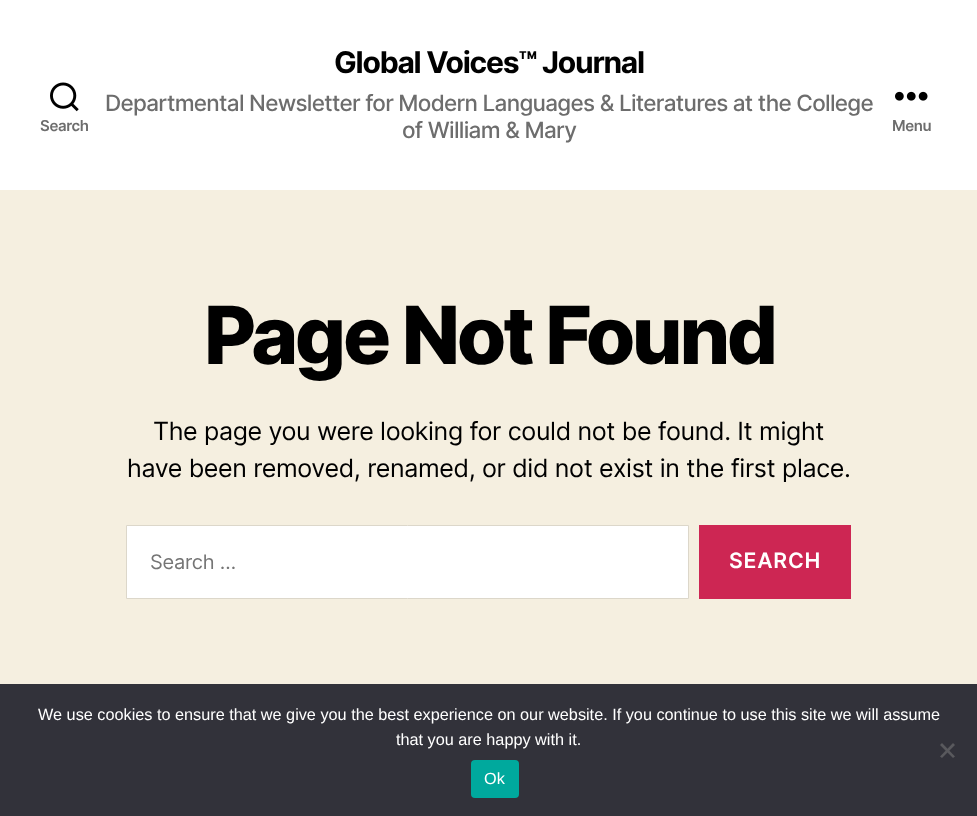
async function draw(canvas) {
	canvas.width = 977;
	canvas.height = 816;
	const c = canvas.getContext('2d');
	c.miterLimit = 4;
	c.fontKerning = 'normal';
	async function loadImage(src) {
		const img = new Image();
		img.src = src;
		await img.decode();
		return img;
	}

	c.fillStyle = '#f5efe0';
	c.fillRect(0, 0, 977, 816);
	c.fillStyle = '#fff';
	c.fillRect(0, 0, 977, 190);
	c.drawImage(await loadImage('img1.png'), 50, 82, 29, 30);
	c.letterSpacing = '-0.35px';
	c.font = '600 15px Inter';
	c.fillStyle = '#6d6d6d';
	c.fillText('Search', 40, 131);
	c.letterSpacing = '-1.25px';
	c.font = 'bold 30px Inter';
	c.fillStyle = '#000';
	c.fillText('Global Voices™ Journal', 334, 73);
	c.letterSpacing = '-0.7px';
	c.font = '500 22.5px Inter';
	c.fillStyle = '#6d6d6d';
	c.fillText('Departmental Newsletter for Modern Languages & Literatures at the College', 105, 111);
	c.fillText('of William & Mary', 402, 138);
	c.drawImage(await loadImage('img2.png'), 895, 91, 33, 10);
	c.letterSpacing = '-0.35px';
	c.font = '600 15px Inter';
	c.fillText('Menu', 892, 131);
	c.letterSpacing = '-3.3px';
	c.font = '800 80px Inter';
	c.fillStyle = '#000';
	c.fillText('Page Not Found', 204, 364);
	c.letterSpacing = '-0.35px';
	c.font = '25px Inter';
	c.fillText('The page you were looking for could not be found. It might', 153, 440);
	c.fillText('have been removed, renamed, or did not exist in the first place.', 127, 477);
	c.fillStyle = '#fff';
	c.beginPath();
	c.rect(126.5, 525.5, 562, 73);
	c.fill();
	c.strokeStyle = '#dcd7ca';
	c.stroke();
	c.letterSpacing = '-0.25px';
	c.font = '20px Inter';
	c.fillStyle = '#757575';
	c.fillText('Search …', 150, 569);
	c.fillStyle = '#cd2653';
	c.fillRect(699, 525, 152, 74);
	c.letterSpacing = '0.75px';
	c.font = '600 21.25px Inter';
	c.fillStyle = '#fff';
	c.fillText('SEARCH', 729, 568);
	c.fillStyle = '#32323a';
	c.fillRect(0, 684, 977, 132);
	c.letterSpacing = '0px';
	c.font = '16.25px Liberation Sans';
	c.fillStyle = '#fff';
	c.fillText('We use cookies to ensure that we give you the best experience on our website. If you continue to use this site we will assume', 38, 720);
	c.fillText('that you are happy with it.', 396, 745);
	c.fillStyle = '#59595d';
	c.beginPath();
	c.moveTo(953, 743);
	c.lineTo(955, 745);
	c.lineTo(942, 758);
	c.lineTo(940, 756.5);
	c.closePath();
	c.fill();
	c.beginPath();
	c.moveTo(940, 745);
	c.lineTo(942, 743);
	c.lineTo(955, 756.5);
	c.lineTo(953, 758);
	c.closePath();
	c.fill();
	c.fillStyle = '#00a99d';
	c.beginPath();
	c.roundRect(471, 760, 48, 38, 4);
	c.fill();
	c.fillStyle = '#fff';
	c.fillText('Ok', 484, 784);
}

draw(document.querySelector('canvas'));
